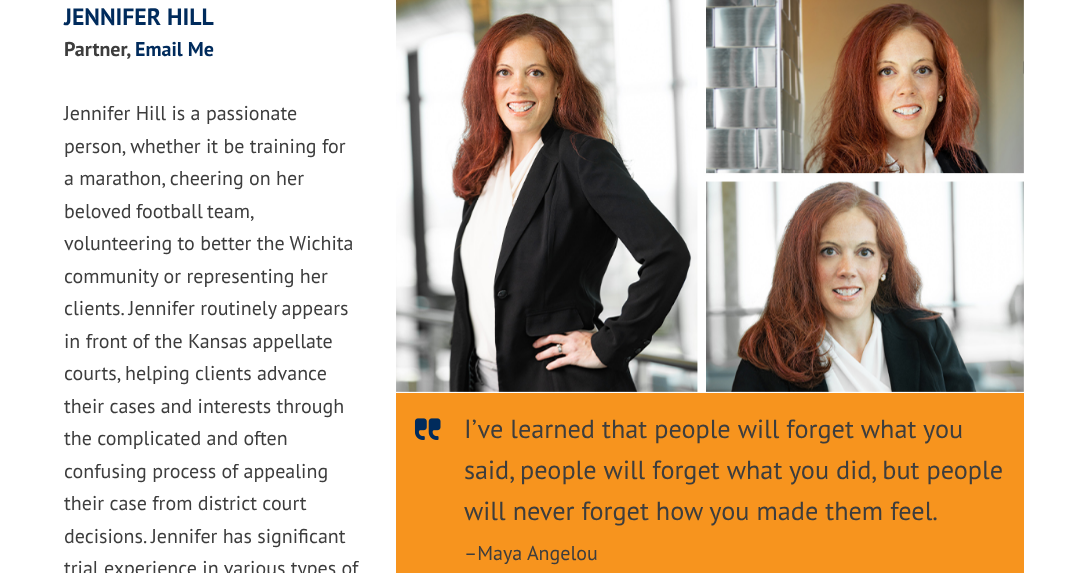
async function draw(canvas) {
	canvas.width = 1088;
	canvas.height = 573;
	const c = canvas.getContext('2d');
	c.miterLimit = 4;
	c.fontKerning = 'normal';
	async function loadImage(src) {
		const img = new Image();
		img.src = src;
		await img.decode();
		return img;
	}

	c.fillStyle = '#fff';
	c.fillRect(0, 0, 1088, 573);
	c.font = 'bold 23.75px PT Sans';
	c.fillStyle = '#002b5c';
	c.fillText('JENNIFER HILL', 64, 25);
	c.font = 'bold 20px PT Sans';
	c.fillStyle = '#3d3d3d';
	c.fillText('Partner,', 64, 56);
	c.fillStyle = '#002b5c';
	c.fillText('Email Me', 135, 56);
	c.font = '20px PT Sans';
	c.fillStyle = '#3d3d3d';
	for (const [text, x, y] of [
		['Jennifer Hill is a passionate', 64, 120],
		['person, whether it be training for', 64, 153],
		['a marathon, cheering on her', 64, 185],
	]) {
		c.fillText(text, x, y);
	}
	c.wordSpacing = '-1px';
	c.fillText('beloved football team,', 64, 218);
	c.wordSpacing = '0px';
	for (const [text, x, y] of [
		['volunteering to better the Wichita', 64, 250],
		['community or representing her', 64, 283],
		['clients. Jennifer routinely appears', 64, 315],
		['in front of the Kansas appellate', 64, 348],
		['courts, helping clients advance', 64, 380],
		['their cases and interests through', 64, 413],
		['the complicated and often', 64, 445],
		['confusing process of appealing', 64, 478],
		['their case from district court', 64, 510],
		['decisions. Jennifer has significant', 64, 543],
		['trial experience in various types of', 64, 575],
	]) {
		c.fillText(text, x, y);
	}
	c.drawImage(await loadImage('img1.png'), 396, 0, 628, 392);
	c.fillStyle = '#f7941e';
	c.fillRect(396, 393, 628, 180);
	c.drawImage(await loadImage('img2.png'), 414, 418, 27, 22);
	c.font = '26.25px PT Sans';
	c.fillStyle = '#3d3d3d';
	for (const [text, x, y] of [
		['I’ve learned that people will forget what you', 464, 438],
		['said, people will forget what you did, but people', 464, 479],
		['will never forget how you made them feel.', 464, 520],
	]) {
		c.fillText(text, x, y);
	}
	c.font = '20px PT Sans';
	c.fillText('–Maya Angelou', 464, 560);
}

draw(document.querySelector('canvas'));
